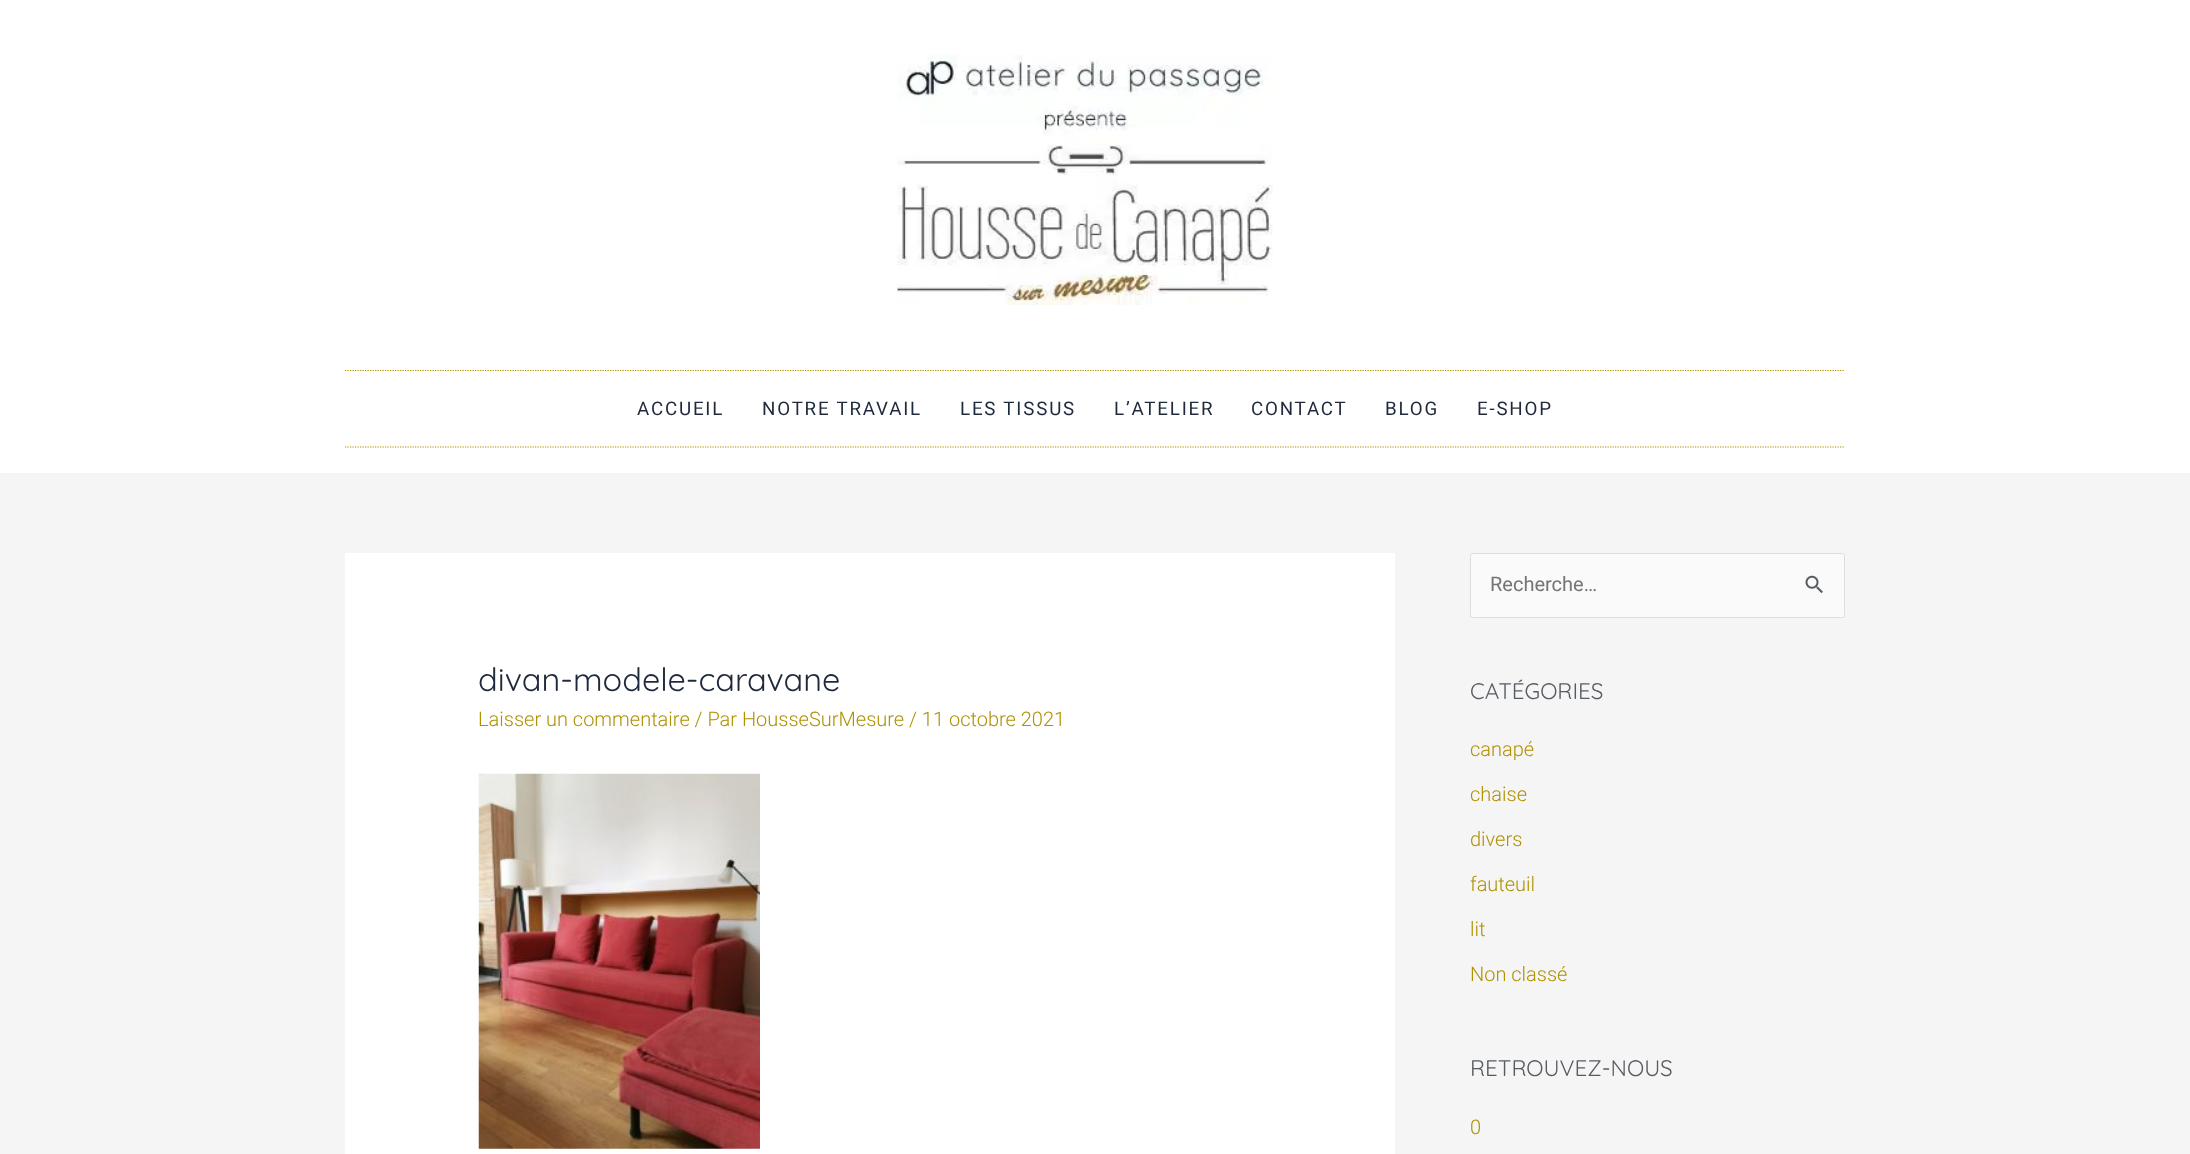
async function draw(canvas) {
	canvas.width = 2190;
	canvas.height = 1154;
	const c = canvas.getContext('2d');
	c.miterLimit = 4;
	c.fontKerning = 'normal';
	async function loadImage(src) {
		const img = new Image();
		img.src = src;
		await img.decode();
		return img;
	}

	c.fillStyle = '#f5f5f5';
	c.fillRect(0, 0, 2190, 1154);
	c.fillStyle = '#fff';
	c.fillRect(0, 0, 2190, 473);
	c.drawImage(await loadImage('img1.png'), 897, 54, 376, 251);
	c.beginPath();
	c.moveTo(345, 370.5);
	c.lineTo(1845, 370.5);
	c.strokeStyle = '#af9101';
	c.lineWidth = 1.2;
	c.setLineDash([1.25, 1.25]);
	c.stroke();
	c.beginPath();
	c.moveTo(345, 447);
	c.lineTo(1845, 447);
	c.stroke();
	c.letterSpacing = '1.8px';
	c.font = '18.75px Roboto';
	c.fillStyle = '#1e293b';
	for (const [text, x, y] of [
		['ACCUEIL', 637, 415],
		['NOTRE TRAVAIL', 762, 415],
		['LES TISSUS', 960, 415],
		['L’ATELIER', 1114, 415],
		['CONTACT', 1251, 415],
		['BLOG', 1385, 415],
		['E-SHOP', 1477, 415],
	]) {
		c.fillText(text, x, y);
	}
	c.fillStyle = '#fff';
	c.fillRect(345, 553, 1050, 601);
	c.letterSpacing = '0px';
	c.font = '32.5px Quicksand';
	c.fillStyle = '#1e293b';
	c.fillText('divan-modele-caravane', 478, 691);
	c.font = '300 20px Roboto';
	c.fillStyle = '#af9101';
	c.fillText('Laisser un commentaire / Par HousseSurMesure / 11 octobre 2021', 478, 726);
	c.drawImage(await loadImage('img2.png'), 478, 773, 282, 376);
	c.fillStyle = '#fafafa';
	c.beginPath();
	c.roundRect(1470.5, 553.5, 374, 64, 2);
	c.fill();
	c.strokeStyle = '#ddd';
	c.lineWidth = 1;
	c.setLineDash([]);
	c.stroke();
	c.font = '20px Roboto';
	c.fillStyle = '#757575';
	c.fillText('Recherche…', 1490, 591);
	c.drawImage(await loadImage('img3.png'), 1805, 575, 18, 19);
	c.font = '22.5px Quicksand';
	c.fillStyle = '#575c63';
	c.fillText('CATÉGORIES', 1470, 699);
	c.font = '300 20px Roboto';
	c.fillStyle = '#af9101';
	for (const [text, x, y] of [
		['canapé', 1470, 756],
		['chaise', 1470, 801],
		['divers', 1470, 846],
		['fauteuil', 1470, 891],
		['lit', 1470, 936],
		['Non classé', 1470, 981],
	]) {
		c.fillText(text, x, y);
	}
	c.font = '22.5px Quicksand';
	c.fillStyle = '#575c63';
	c.fillText('RETROUVEZ-NOUS', 1470, 1076);
	c.font = '300 20px Roboto';
	c.fillStyle = '#af9101';
	c.fillText('0', 1470, 1134);
}

draw(document.querySelector('canvas'));
